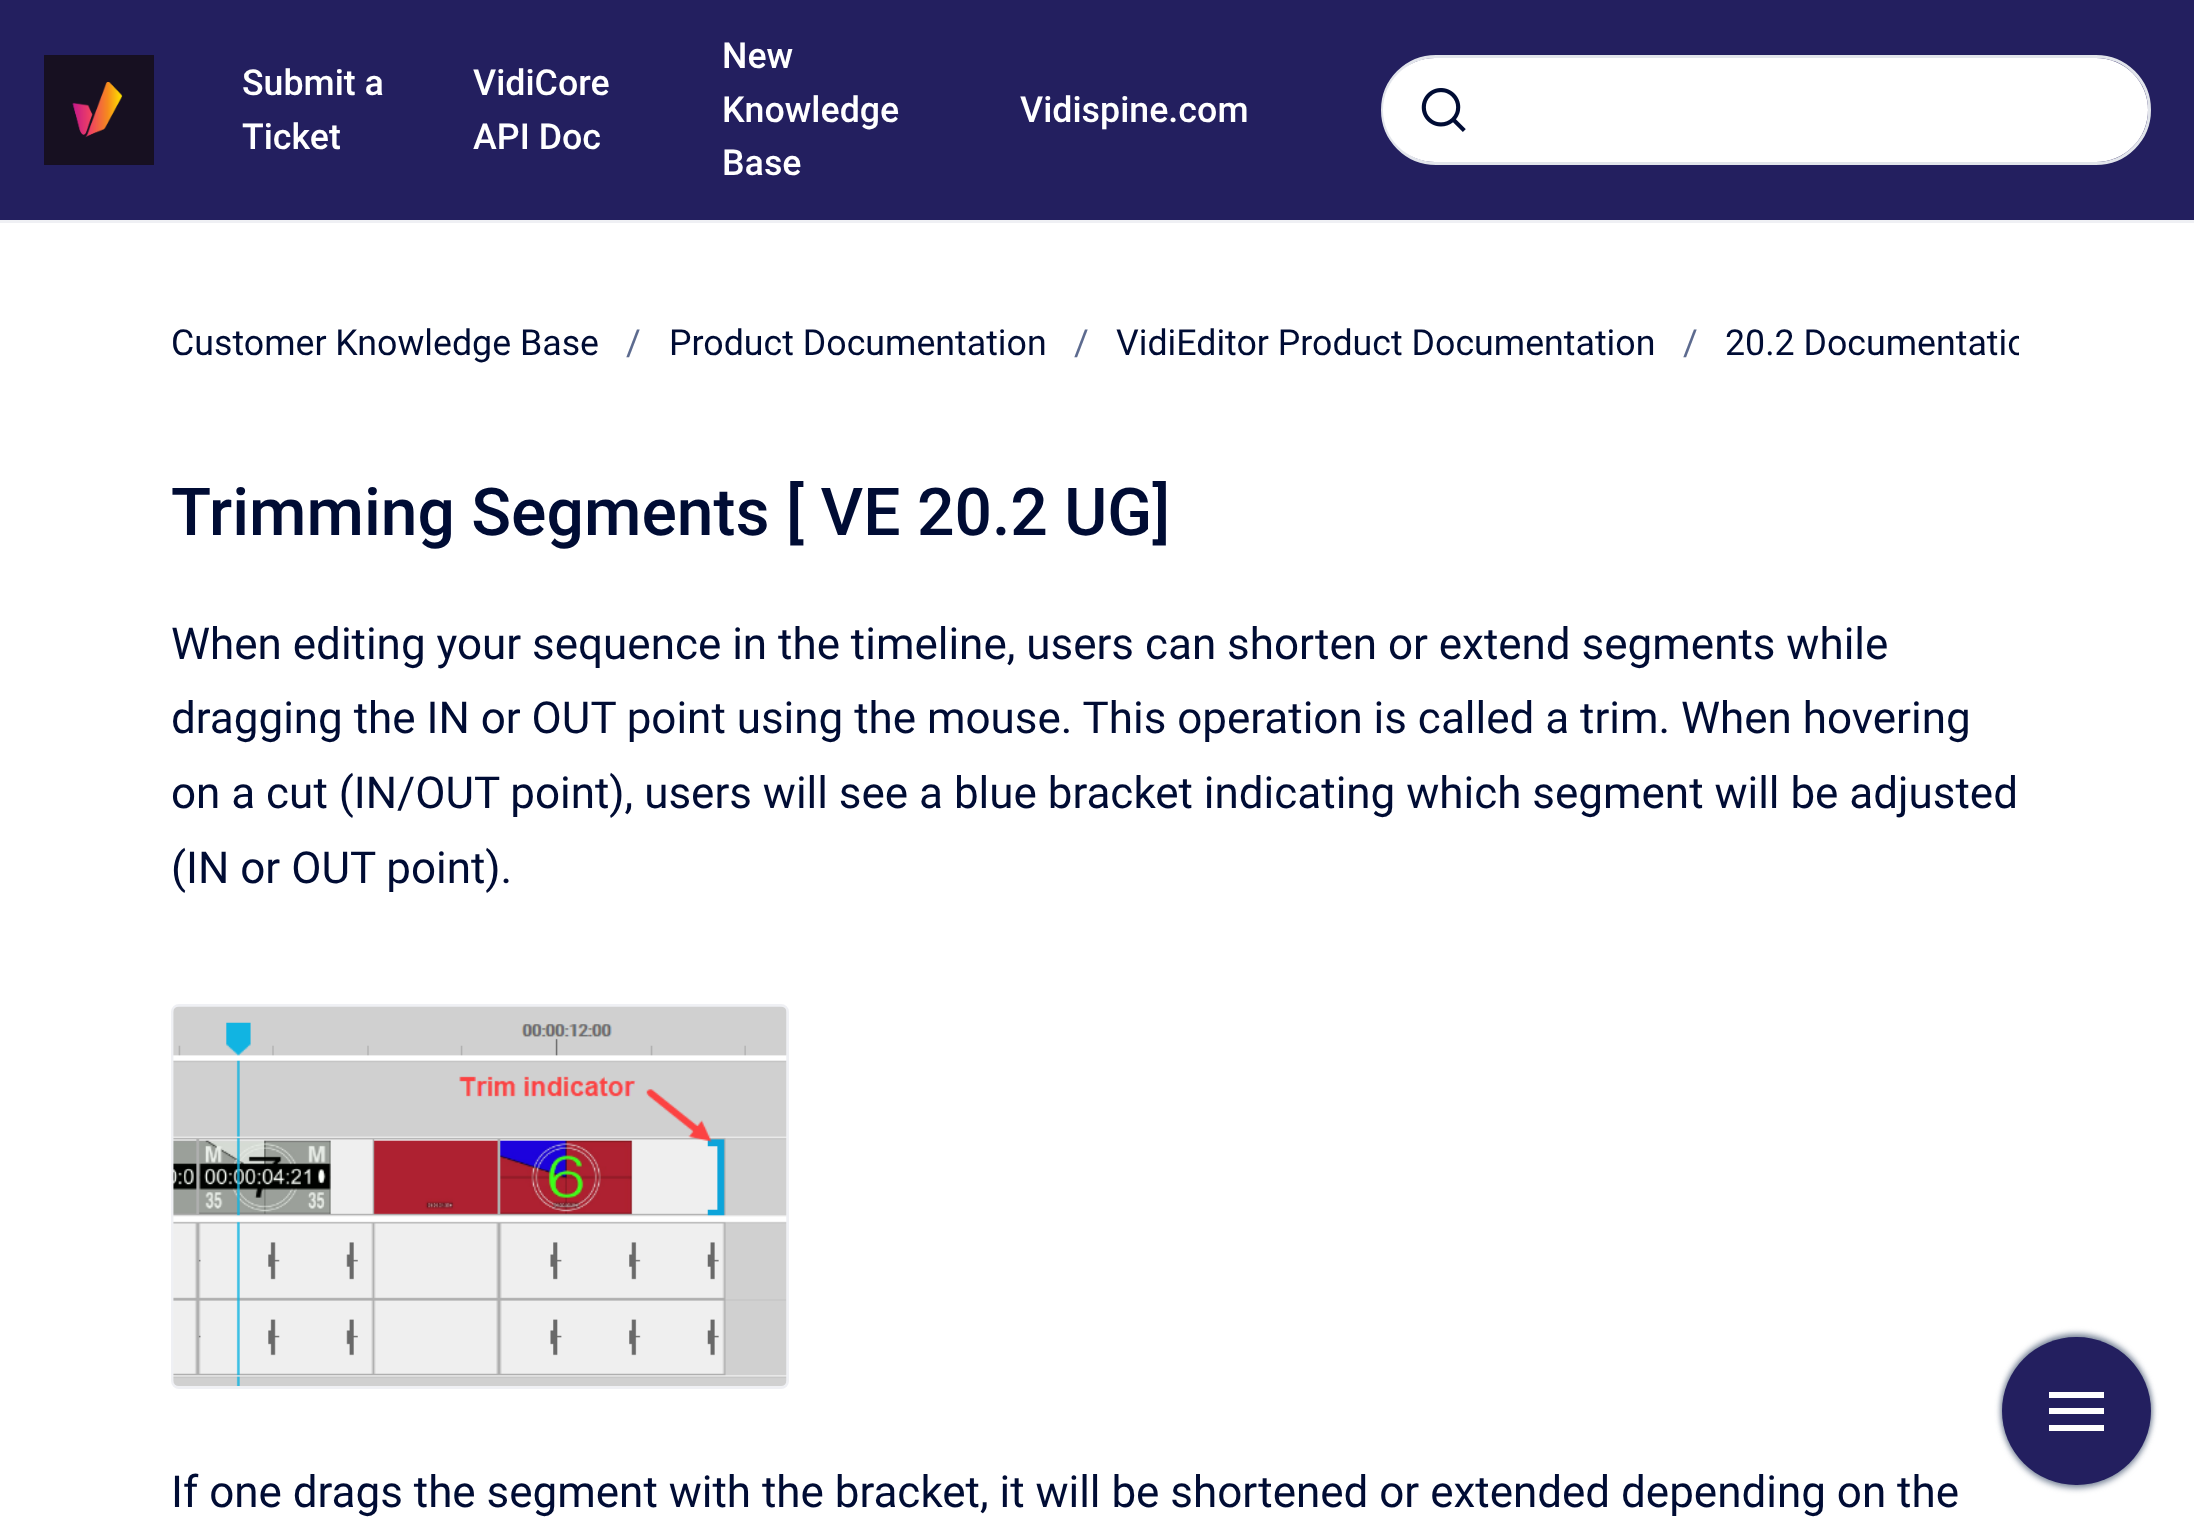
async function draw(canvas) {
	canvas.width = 2194;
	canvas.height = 1527;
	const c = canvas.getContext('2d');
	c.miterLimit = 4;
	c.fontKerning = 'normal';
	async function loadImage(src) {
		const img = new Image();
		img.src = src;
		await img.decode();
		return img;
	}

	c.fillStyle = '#fff';
	c.fillRect(0, 0, 2194, 1527);
	c.fillStyle = '#231f5f';
	c.fillRect(0, 0, 2194, 220);
	c.fillStyle = '#eff0f4';
	c.fillRect(0, 220, 2194, 3);
	c.drawImage(await loadImage('img1.png'), 44, 55, 110, 110);
	c.font = '500 35.75px Roboto';
	c.fillStyle = '#fff';
	for (const [text, x, y] of [
		['Submit a', 242, 95],
		['Ticket', 242, 149],
		['VidiCore', 473, 95],
		['API Doc', 473, 149],
		['New', 722, 68],
		['Knowledge', 722, 122],
		['Base', 722, 175],
		['Vidispine.com', 1020, 122],
	]) {
		c.fillText(text, x, y);
	}
	c.beginPath();
	c.roundRect(1382.5, 56.5, 767, 107, 53.5);
	c.strokeStyle = '#e2e5eb';
	c.lineWidth = 3;
	c.stroke();
	c.beginPath();
	c.roundRect(1383, 58, 765, 104, 52);
	c.fill();
	c.drawImage(await loadImage('img2.png'), 1421, 88, 45, 44);
	c.font = '35.75px Roboto';
	c.fillStyle = '#000c34';
	c.fillText('Customer Knowledge Base', 171, 355);
	c.fillStyle = '#5d6b8f';
	c.fillText('/', 626, 355);
	c.fillStyle = '#000c34';
	c.fillText('Product Documentation', 669, 355);
	c.fillStyle = '#5d6b8f';
	c.fillText('/', 1074, 355);
	c.fillStyle = '#000c34';
	c.fillText('VidiEditor Product Documentation', 1116, 355);
	c.fillStyle = '#5d6b8f';
	c.fillText('/', 1683, 355);
	c.save();
	c.beginPath();
	c.rect(165, 311, 1854, 66);
	c.clip();
	c.fillStyle = '#000c34';
	c.fillText('20.2 Documentatio', 1725, 355);
	c.restore();
	c.font = '500 66px Roboto';
	c.fillStyle = '#000c34';
	c.fillText('Trimming Segments [ VE 20.2 UG]', 171, 535);
	c.font = '44px Roboto';
	for (const [text, x, y] of [
		['When editing your sequence in the timeline, users can shorten or extend segments while', 171, 659],
		['dragging the IN or OUT point using the mouse. This operation is called a trim. When hovering', 171, 733],
		['on a cut (IN/OUT point), users will see a blue bracket indicating which segment will be adjusted', 171, 808],
		['(IN or OUT point).', 171, 883],
	]) {
		c.fillText(text, x, y);
	}
	c.beginPath();
	c.roundRect(172.5, 1005.5, 615, 382, 6.5);
	c.strokeStyle = '#eff0f4';
	c.stroke();
	c.drawImage(await loadImage('img3.png'), 173, 1006, 614, 380);
	c.fillText('If one drags the segment with the bracket, it will be shortened or extended depending on the', 171, 1507);
	c.fillStyle = '#7a869a';
	c.filter = 'blur(3px)';
	c.beginPath();
	c.roundRect(2002, 1334, 149, 148, 74);
	c.fill();
	c.filter = 'none';
	c.filter = 'blur(3px)';
	c.beginPath();
	c.roundRect(2002, 1339, 149, 149, 74.5);
	c.fill();
	c.filter = 'none';
	c.fillStyle = '#231f5f';
	c.beginPath();
	c.roundRect(2002, 1337, 149, 148, 74);
	c.fill();
	for (const [x, y, w, h, color] of [
		[2049, 1392, 55, 6, '#fff'],
		[2049, 1408, 55, 6, '#fff'],
		[2049, 1425, 55, 6, '#fff'],
	]) {
		c.fillStyle = color;
		c.fillRect(x, y, w, h);
	}
}

draw(document.querySelector('canvas'));
